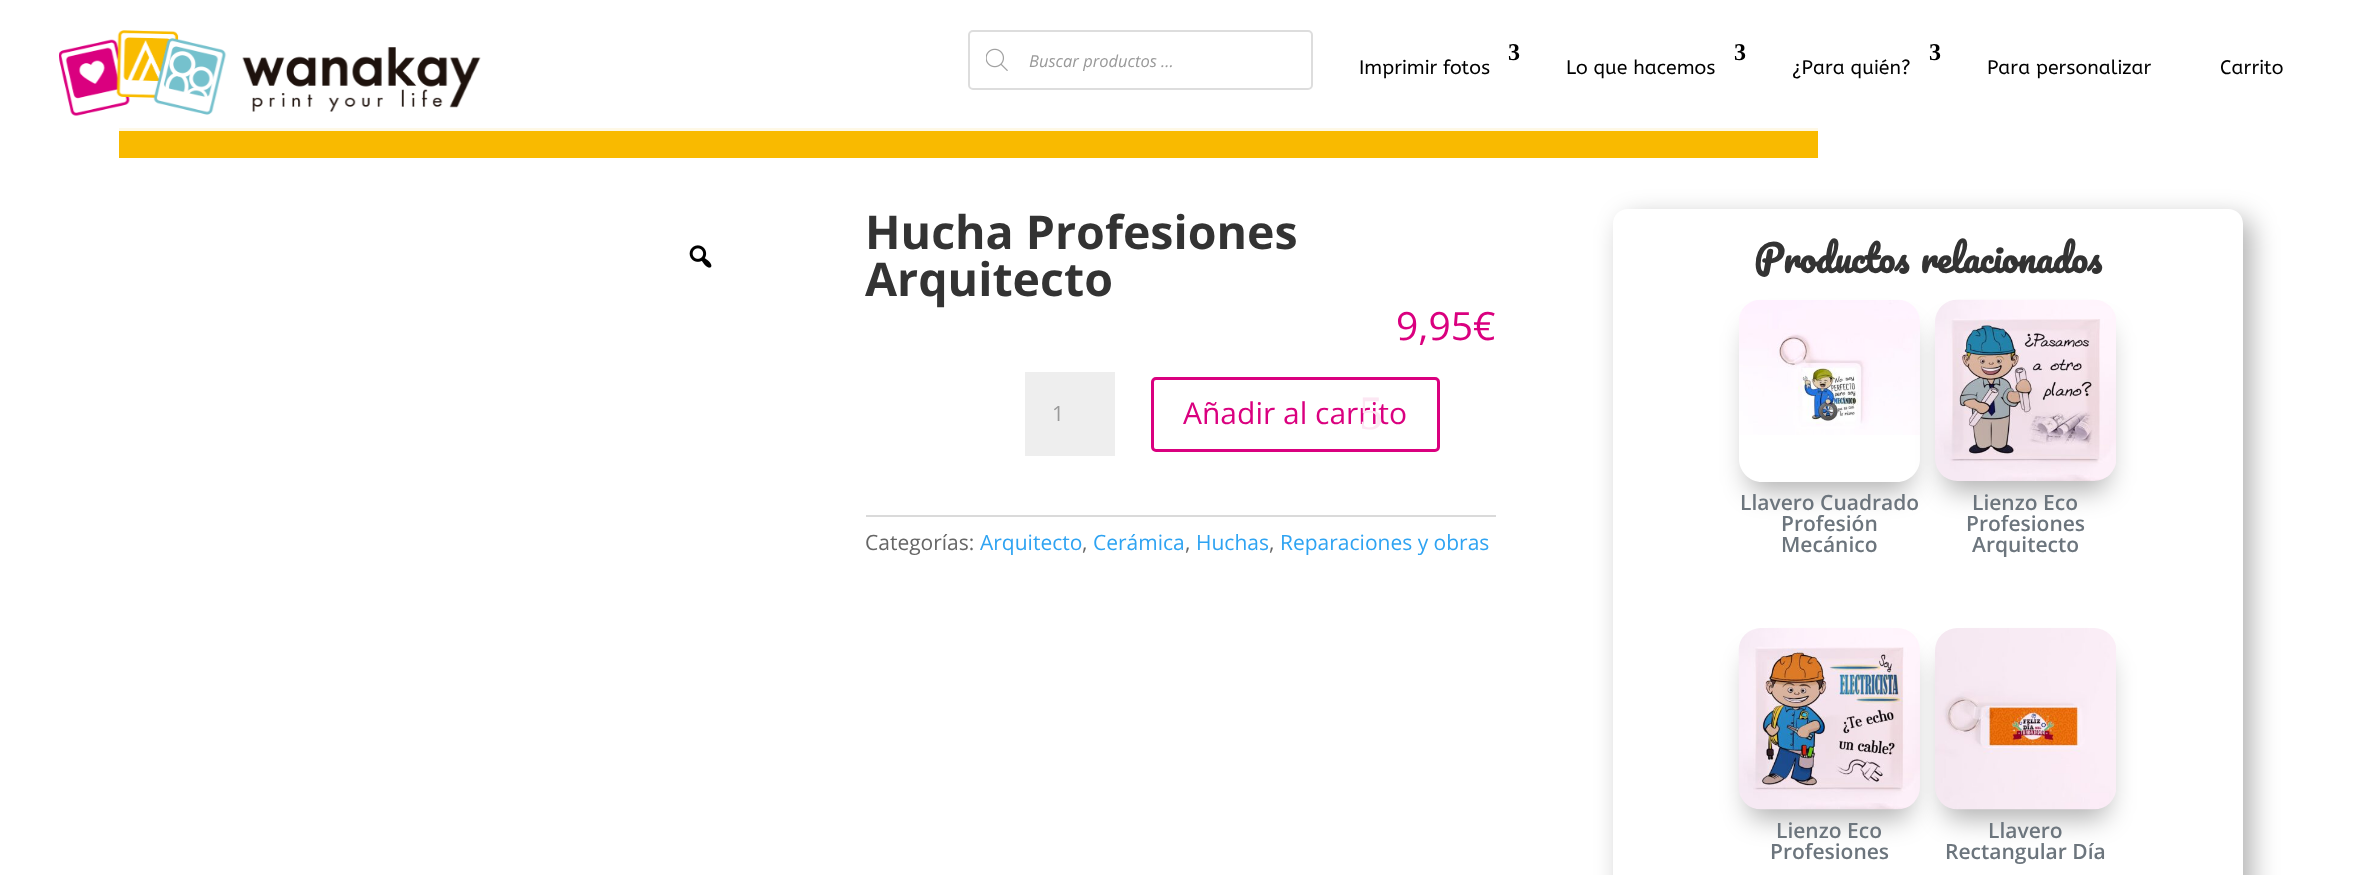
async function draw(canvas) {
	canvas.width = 2361;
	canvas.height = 875;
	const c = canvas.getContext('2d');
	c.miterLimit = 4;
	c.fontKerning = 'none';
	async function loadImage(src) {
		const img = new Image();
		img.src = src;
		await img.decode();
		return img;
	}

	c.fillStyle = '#fff';
	c.fillRect(0, 0, 2361, 875);
	c.drawImage(await loadImage('img1.png'), 59, 30, 422, 86);
	c.beginPath();
	c.roundRect(969, 31, 343, 58, 4);
	c.strokeStyle = '#ddd';
	c.lineWidth = 2;
	c.stroke();
	c.drawImage(await loadImage('img2.png'), 986, 48, 22, 23);
	c.font = 'italic 16.5px Open Sans';
	c.fillStyle = '#999';
	c.fillText('Buscar productos ...', 1029, 67);
	c.font = 'bold 24px Liberation Serif';
	c.fillStyle = '#000';
	c.fillText('3', 1508, 60);
	c.font = '19.5px ABeeZee';
	c.fillText('Imprimir fotos', 1359, 74);
	c.font = 'bold 24px Liberation Serif';
	c.fillText('3', 1734, 60);
	c.font = '19.5px ABeeZee';
	c.fillText('Lo que hacemos', 1566, 74);
	c.font = 'bold 24px Liberation Serif';
	c.fillText('3', 1929, 60);
	c.font = '19.5px ABeeZee';
	for (const [text, x, y] of [
		['¿Para quién?', 1792, 74],
		['Para personalizar', 1987, 74],
		['Carrito', 2220, 74],
	]) {
		c.fillText(text, x, y);
	}
	c.fillStyle = '#f9ba00';
	c.fillRect(119, 131, 1699, 27);
	c.fillStyle = '#fef8e6';
	c.fillRect(119, 128, 1699, 3);
	c.drawImage(await loadImage('img3.png'), 689, 245, 23, 23);
	c.font = 'bold 46.5px Open Sans';
	c.fillStyle = '#333';
	c.fillText('Hucha Profesiones', 865, 249);
	c.fillText('Arquitecto', 865, 296);
	c.font = '39px Open Sans';
	c.fillStyle = '#da007f';
	c.fillText('9,95€', 1396, 340);
	c.fillStyle = '#eee';
	c.fillRect(1025, 372, 90, 84);
	c.font = '21px Open Sans';
	c.fillStyle = '#999';
	c.fillText('1', 1052, 421);
	c.beginPath();
	c.roundRect(1152.5, 378.5, 286, 72, 3.5);
	c.strokeStyle = '#da007f';
	c.lineWidth = 3;
	c.stroke();
	c.font = '30px Open Sans';
	c.fillStyle = '#da007f';
	c.fillText('Añadir al carrito', 1183, 424);
	c.font = '48px Liberation Serif';
	c.fillStyle = '#fce7f3';
	c.fillText('5', 1359, 429);
	c.fillStyle = '#dadada';
	c.fillRect(866, 515, 630, 2);
	c.font = '21px Open Sans';
	c.fillStyle = '#666';
	c.fillText('Categorías:', 865, 550);
	c.fillStyle = '#2ea3f2';
	c.fillText('Arquitecto', 980, 550);
	c.fillStyle = '#666';
	c.fillText(',', 1082, 550);
	c.fillStyle = '#2ea3f2';
	c.fillText('Cerámica', 1093, 550);
	c.fillStyle = '#666';
	c.fillText(',', 1185, 550);
	c.fillStyle = '#2ea3f2';
	c.fillText('Huchas', 1196, 550);
	c.fillStyle = '#666';
	c.fillText(',', 1269, 550);
	c.fillStyle = '#2ea3f2';
	c.fillText('Reparaciones y obras', 1280, 550);
	c.save();
	c.beginPath();
	c.moveTo(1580, 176);
	c.lineTo(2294, 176);
	c.lineTo(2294, 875);
	c.lineTo(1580, 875);
	c.closePath();
	c.moveTo(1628, 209);
	c.lineTo(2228, 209);
	c.bezierCurveTo(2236.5, 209, 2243, 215.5, 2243, 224);
	c.lineTo(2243, 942);
	c.bezierCurveTo(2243, 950.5, 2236.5, 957, 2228, 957);
	c.lineTo(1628, 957);
	c.bezierCurveTo(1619.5, 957, 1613, 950.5, 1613, 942);
	c.lineTo(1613, 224);
	c.bezierCurveTo(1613, 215.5, 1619.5, 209, 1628, 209);
	c.closePath();
	c.clip('evenodd');
	c.fillStyle = '#0000004d';
	c.filter = 'blur(13.5px)';
	c.beginPath();
	c.roundRect(1622, 218, 630, 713, 15);
	c.fill();
	c.filter = 'none';
	c.restore();
	c.wordSpacing = '2px';
	c.font = 'bold 36px Pacifico';
	c.fillStyle = '#333';
	c.fillText('Productos relacionados', 1754, 273);
	c.save();
	c.beginPath();
	c.moveTo(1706, 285);
	c.lineTo(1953, 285);
	c.lineTo(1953, 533);
	c.lineTo(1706, 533);
	c.closePath();
	c.moveTo(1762, 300);
	c.lineTo(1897, 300);
	c.bezierCurveTo(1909.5, 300, 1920, 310.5, 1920, 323);
	c.lineTo(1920, 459);
	c.bezierCurveTo(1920, 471.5, 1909.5, 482, 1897, 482);
	c.lineTo(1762, 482);
	c.bezierCurveTo(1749.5, 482, 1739, 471.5, 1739, 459);
	c.lineTo(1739, 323);
	c.bezierCurveTo(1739, 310.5, 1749.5, 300, 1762, 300);
	c.closePath();
	c.clip('evenodd');
	c.fillStyle = '#0000004d';
	c.filter = 'blur(13.5px)';
	c.beginPath();
	c.roundRect(1748, 327, 163, 164, 14);
	c.fill();
	c.filter = 'none';
	c.restore();
	c.drawImage(await loadImage('img4.png'), 1739, 300, 181, 135);
	c.wordSpacing = '0px';
	c.font = '600 21px Open Sans';
	c.fillStyle = '#6c757d';
	for (const [text, x, y] of [
		['Llavero Cuadrado', 1740, 510],
		['Profesión', 1781, 531],
		['Mecánico', 1781, 552],
	]) {
		c.fillText(text, x, y);
	}
	c.fillStyle = '#0000004d';
	c.filter = 'blur(13.5px)';
	c.beginPath();
	c.roundRect(1944, 327, 164, 164, 14);
	c.fill();
	c.filter = 'none';
	c.drawImage(await loadImage('img5.png'), 1935, 299, 181, 182);
	c.fillStyle = '#6c757d';
	for (const [text, x, y] of [
		['Lienzo Eco', 1972, 510],
		['Profesiones', 1966, 531],
		['Arquitecto', 1972, 552],
	]) {
		c.fillText(text, x, y);
	}
	c.fillStyle = '#0000004d';
	c.filter = 'blur(13.5px)';
	c.beginPath();
	c.roundRect(1748, 656, 163, 163, 14);
	c.fill();
	c.filter = 'none';
	c.drawImage(await loadImage('img6.png'), 1738, 628, 182, 182);
	c.fillStyle = '#6c757d';
	c.fillText('Lienzo Eco', 1776, 838);
	c.fillText('Profesiones', 1770, 859);
	c.fillStyle = '#0000004d';
	c.filter = 'blur(13.5px)';
	c.beginPath();
	c.roundRect(1944, 656, 164, 163, 14);
	c.fill();
	c.filter = 'none';
	c.drawImage(await loadImage('img7.png'), 1935, 628, 181, 182);
	c.fillStyle = '#6c757d';
	c.fillText('Llavero', 1988, 838);
	c.fillText('Rectangular Día', 1945, 859);
}

draw(document.querySelector('canvas'));
